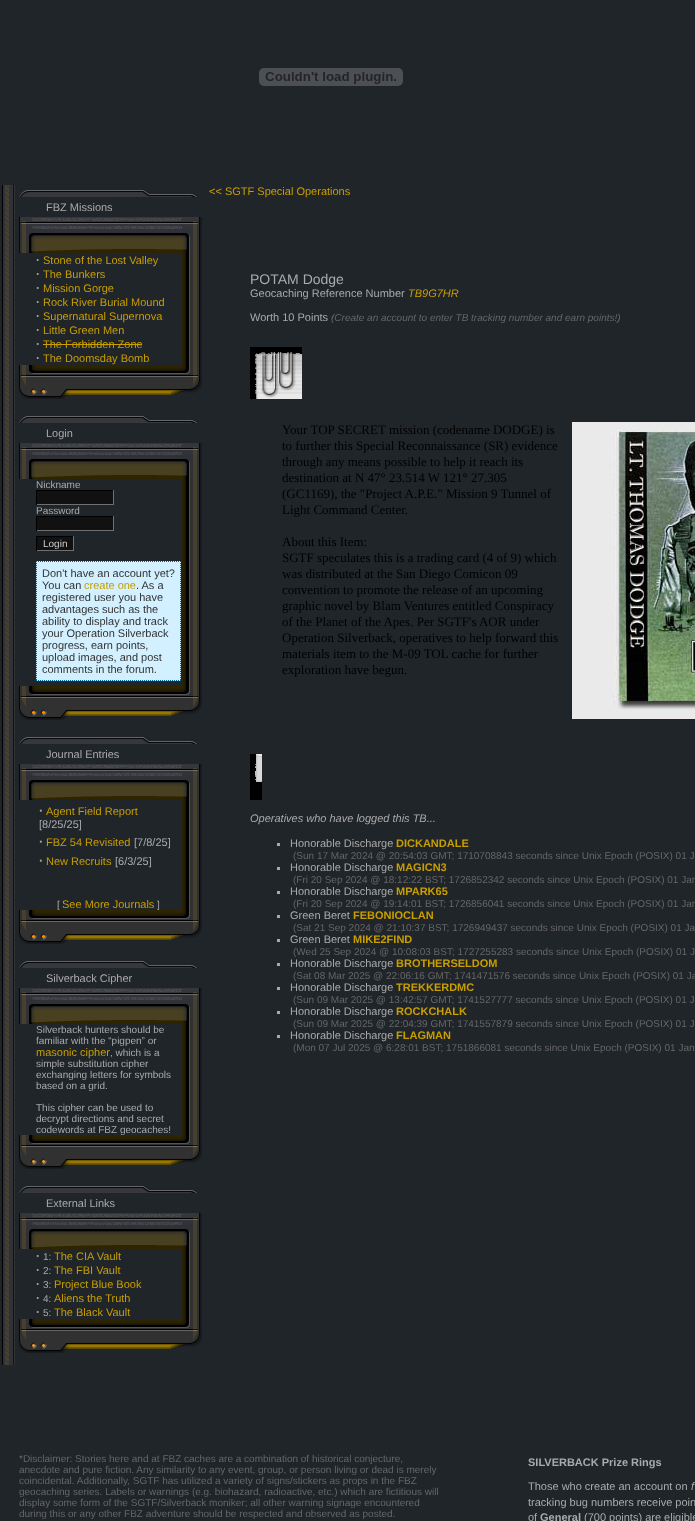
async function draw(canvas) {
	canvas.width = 695;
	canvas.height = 1521;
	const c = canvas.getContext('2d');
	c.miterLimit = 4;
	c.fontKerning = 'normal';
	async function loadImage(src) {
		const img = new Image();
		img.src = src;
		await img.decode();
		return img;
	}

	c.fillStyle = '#20252a';
	c.fillRect(0, 0, 695, 1521);
	c.drawImage(await loadImage('img1.png'), 259, 68, 144, 18);
	c.drawImage(await loadImage('img2.png'), 0, 185, 16, 1180);
	c.drawImage(await loadImage('img3.png'), 19, 190, 180, 7);
	c.font = '11px Liberation Sans';
	c.fillStyle = '#aaa';
	c.fillText('FBZ Missions', 46, 211);
	c.drawImage(await loadImage('img4.png'), 19, 217, 183, 36);
	c.font = 'bold 12px Liberation Sans';
	c.fillText('·', 36, 264);
	c.font = '11px Liberation Sans';
	c.fillStyle = '#c89e00';
	c.fillText('Stone of the Lost Valley', 43, 264);
	c.font = 'bold 12px Liberation Sans';
	c.fillStyle = '#aaa';
	c.fillText('·', 36, 278);
	c.font = '11px Liberation Sans';
	c.fillStyle = '#c89e00';
	c.fillText('The Bunkers', 43, 278);
	c.font = 'bold 12px Liberation Sans';
	c.fillStyle = '#aaa';
	c.fillText('·', 36, 292);
	c.font = '11px Liberation Sans';
	c.fillStyle = '#c89e00';
	c.fillText('Mission Gorge', 43, 292);
	c.font = 'bold 12px Liberation Sans';
	c.fillStyle = '#aaa';
	c.fillText('·', 36, 306);
	c.font = '11px Liberation Sans';
	c.fillStyle = '#c89e00';
	c.fillText('Rock River Burial Mound', 43, 306);
	c.font = 'bold 12px Liberation Sans';
	c.fillStyle = '#aaa';
	c.fillText('·', 36, 320);
	c.font = '11px Liberation Sans';
	c.fillStyle = '#c89e00';
	c.fillText('Supernatural Supernova', 43, 320);
	c.font = 'bold 12px Liberation Sans';
	c.fillStyle = '#aaa';
	c.fillText('·', 36, 334);
	c.font = '11px Liberation Sans';
	c.fillStyle = '#c89e00';
	c.fillText('Little Green Men', 43, 334);
	c.font = 'bold 12px Liberation Sans';
	c.fillStyle = '#aaa';
	c.fillText('·', 36, 348);
	c.font = '11px Liberation Sans';
	c.fillStyle = '#c89e00';
	c.fillText('The Forbidden Zone', 43, 348);
	c.fillRect(43, 344, 99, 1);
	c.font = 'bold 12px Liberation Sans';
	c.fillStyle = '#aaa';
	c.fillText('·', 36, 362);
	c.font = '11px Liberation Sans';
	c.fillStyle = '#c89e00';
	c.fillText('The Doomsday Bomb', 43, 362);
	c.drawImage(await loadImage('img5.png'), 181, 253, 21, 112);
	c.drawImage(await loadImage('img6.png'), 18, 365, 184, 34);
	c.drawImage(await loadImage('img3.png'), 19, 416, 180, 7);
	c.fillStyle = '#aaa';
	c.fillText('Login', 46, 437);
	c.drawImage(await loadImage('img4.png'), 19, 443, 183, 36);
	c.font = '10px Liberation Sans';
	c.fillText('Nickname', 36, 488);
	for (const [x, y, w, h, color] of [
		[37, 491, 76, 13, '#111'],
		[36, 490, 78, 1, '#000'],
		[113, 490, 1, 15, '#707070'],
		[36, 504, 78, 1, '#707070'],
		[36, 490, 1, 15, '#000'],
	]) {
		c.fillStyle = color;
		c.fillRect(x, y, w, h);
	}
	c.fillStyle = '#aaa';
	c.fillText('Password', 36, 514);
	for (const [x, y, w, h, color] of [
		[37, 517, 76, 13, '#111'],
		[36, 516, 78, 1, '#000'],
		[113, 516, 1, 15, '#707070'],
		[36, 530, 78, 1, '#707070'],
		[36, 516, 1, 15, '#000'],
		[37, 537, 36, 13, '#111'],
		[36, 536, 38, 1, '#000'],
		[73, 536, 1, 15, '#707070'],
		[36, 550, 38, 1, '#707070'],
		[36, 536, 1, 15, '#000'],
	]) {
		c.fillStyle = color;
		c.fillRect(x, y, w, h);
	}
	c.fillStyle = '#ccc';
	c.fillText('Login', 43, 547);
	c.fillStyle = '#d2f0ff';
	c.fillRect(36, 561, 145, 120);
	c.beginPath();
	c.moveTo(36, 561.5);
	c.lineTo(181, 561.5);
	c.strokeStyle = '#069';
	c.setLineDash([1, 1]);
	c.stroke();
	c.beginPath();
	c.moveTo(180.5, 561);
	c.lineTo(180.5, 681);
	c.stroke();
	c.beginPath();
	c.moveTo(36, 680.5);
	c.lineTo(181, 680.5);
	c.stroke();
	c.beginPath();
	c.moveTo(36.5, 561);
	c.lineTo(36.5, 681);
	c.stroke();
	c.font = '11px Liberation Sans';
	c.fillStyle = '#333';
	c.fillText('Don\'t have an account yet?', 42, 577);
	c.fillText('You can', 42, 589);
	c.fillStyle = '#c89e00';
	c.fillText('create one', 84, 589);
	c.fillStyle = '#333';
	for (const [text, x, y] of [
		['. As a', 136, 589],
		['registered user you have', 42, 601],
		['advantages such as the', 42, 613],
		['ability to display and track', 42, 625],
		['your Operation Silverback', 42, 637],
		['progress, earn points,', 42, 649],
		['upload images, and post', 42, 661],
		['comments in the forum.', 42, 673],
	]) {
		c.fillText(text, x, y);
	}
	c.drawImage(await loadImage('img7.png'), 181, 479, 21, 207);
	c.drawImage(await loadImage('img6.png'), 18, 686, 184, 34);
	c.drawImage(await loadImage('img3.png'), 19, 737, 180, 7);
	c.fillStyle = '#aaa';
	c.fillText('Journal Entries', 46, 758);
	c.drawImage(await loadImage('img4.png'), 19, 764, 183, 36);
	c.font = 'bold 13px Liberation Sans';
	c.fillText('·', 39, 815);
	c.font = '11px Liberation Sans';
	c.fillStyle = '#c89e00';
	c.fillText('Agent Field Report', 46, 815);
	c.fillStyle = '#aaa';
	c.fillText('[8/25/25]', 39, 828);
	c.font = 'bold 13px Liberation Sans';
	c.fillText('·', 39, 846);
	c.font = '11px Liberation Sans';
	c.fillStyle = '#c89e00';
	c.fillText('FBZ 54 Revisited', 46, 846);
	c.fillStyle = '#aaa';
	c.fillText('[7/8/25]', 134, 846);
	c.font = 'bold 13px Liberation Sans';
	c.fillText('·', 39, 865);
	c.font = '11px Liberation Sans';
	c.fillStyle = '#c89e00';
	c.fillText('New Recruits', 46, 865);
	c.fillStyle = '#aaa';
	c.fillText('[6/3/25]', 115, 865);
	c.drawImage(await loadImage('img6.png'), 18, 910, 184, 34);
	c.font = '10px Liberation Sans';
	c.fillText('[', 57, 908);
	c.font = '11px Liberation Sans';
	c.fillStyle = '#c89e00';
	c.fillText('See More Journals', 62, 908);
	c.font = '10px Liberation Sans';
	c.fillStyle = '#aaa';
	c.fillText(']', 157, 908);
	c.drawImage(await loadImage('img8.png'), 181, 800, 21, 110);
	c.fillStyle = '#2e2400';
	c.fillRect(57, 910, 103, 1);
	c.drawImage(await loadImage('img3.png'), 19, 961, 180, 7);
	c.font = '11px Liberation Sans';
	c.fillStyle = '#aaa';
	c.fillText('Silverback Cipher', 46, 982);
	c.drawImage(await loadImage('img4.png'), 19, 988, 183, 36);
	c.font = '10px Liberation Sans';
	c.fillText('Silverback hunters should be', 36, 1033);
	c.fillText('familiar with the “pigpen” or', 36, 1044);
	c.font = '11px Liberation Sans';
	c.fillStyle = '#c89e00';
	c.fillText('masonic cipher', 36, 1056);
	c.font = '10px Liberation Sans';
	c.fillStyle = '#aaa';
	for (const [text, x, y] of [
		[', which is a', 110, 1056],
		['simple substitution cipher', 36, 1067],
		['exchanging letters for symbols', 36, 1078],
		['based on a grid.', 36, 1089],
		['This cipher can be used to', 36, 1111],
		['decrypt directions and secret', 36, 1122],
	]) {
		c.fillText(text, x, y);
	}
	c.drawImage(await loadImage('img6.png'), 18, 1135, 184, 34);
	c.fillText('codewords at FBZ geocaches!', 36, 1133);
	c.drawImage(await loadImage('img9.png'), 181, 1024, 21, 111);
	c.fillStyle = '#2e2400';
	c.fillRect(122, 1135, 1, 1);
	c.drawImage(await loadImage('img3.png'), 19, 1186, 180, 7);
	c.font = '11px Liberation Sans';
	c.fillStyle = '#aaa';
	c.fillText('External Links', 46, 1207);
	c.drawImage(await loadImage('img4.png'), 19, 1213, 183, 36);
	c.font = 'bold 12px Liberation Sans';
	c.fillText('·', 36, 1260);
	c.font = '10px Liberation Sans';
	c.fillText('1:', 43, 1260);
	c.font = '11px Liberation Sans';
	c.fillStyle = '#c89e00';
	c.fillText('The CIA Vault', 54, 1260);
	c.font = 'bold 12px Liberation Sans';
	c.fillStyle = '#aaa';
	c.fillText('·', 36, 1274);
	c.font = '10px Liberation Sans';
	c.fillText('2:', 43, 1274);
	c.font = '11px Liberation Sans';
	c.fillStyle = '#c89e00';
	c.fillText('The FBI Vault', 54, 1274);
	c.font = 'bold 12px Liberation Sans';
	c.fillStyle = '#aaa';
	c.fillText('·', 36, 1288);
	c.font = '10px Liberation Sans';
	c.fillText('3:', 43, 1288);
	c.font = '11px Liberation Sans';
	c.fillStyle = '#c89e00';
	c.fillText('Project Blue Book', 54, 1288);
	c.font = 'bold 12px Liberation Sans';
	c.fillStyle = '#aaa';
	c.fillText('·', 36, 1302);
	c.font = '10px Liberation Sans';
	c.fillText('4:', 43, 1302);
	c.font = '11px Liberation Sans';
	c.fillStyle = '#c89e00';
	c.fillText('Aliens the Truth', 54, 1302);
	c.font = 'bold 12px Liberation Sans';
	c.fillStyle = '#aaa';
	c.fillText('·', 36, 1316);
	c.font = '10px Liberation Sans';
	c.fillText('5:', 43, 1316);
	c.font = '11px Liberation Sans';
	c.fillStyle = '#c89e00';
	c.fillText('The Black Vault', 54, 1316);
	c.drawImage(await loadImage('img10.png'), 181, 1249, 21, 70);
	c.drawImage(await loadImage('img6.png'), 18, 1319, 184, 34);
	c.fillText('<< SGTF Special Operations', 209, 195);
	c.font = '14px Liberation Sans';
	c.fillStyle = '#aaa';
	c.fillText('POTAM Dodge', 250, 284);
	c.font = '11px Liberation Sans';
	c.fillText('Geocaching Reference Number', 250, 297);
	c.font = 'italic 11px Liberation Sans';
	c.fillStyle = '#c89e00';
	c.fillText('TB9G7HR', 408, 297);
	c.font = '11px Liberation Sans';
	c.fillStyle = '#aaa';
	c.fillText('Worth 10 Points', 250, 321);
	c.font = 'italic 10px Liberation Sans';
	c.fillStyle = '#666';
	c.fillText('(Create an account to enter TB tracking number and earn points!)', 331, 321);
	c.drawImage(await loadImage('img11.png'), 250, 347, 52, 52);
	c.font = '13px Liberation Serif';
	c.fillStyle = '#000';
	c.fillText('Your TOP SECRET mission (codename DODGE) is', 282, 434);
	c.drawImage(await loadImage('img12.png'), 572, 422, 123, 297);
	for (const [text, x, y] of [
		['to further this Special Reconnaissance (SR) evidence', 282, 450],
		['through any means possible to help it reach its', 282, 466],
		['destination at N 47° 23.514 W 121° 27.305', 282, 482],
		['(GC1169), the "Project A.P.E." Mission 9 Tunnel of', 282, 498],
		['Light Command Center.', 282, 514],
		['About this Item:', 282, 546],
		['SGTF speculates this is a trading card (4 of 9) which', 282, 562],
		['was distributed at the San Diego Comicon 09', 282, 578],
		['convention to promote the release of an upcoming', 282, 594],
		['graphic novel by Blam Ventures entitled Conspiracy', 282, 610],
		['of the Planet of the Apes. Per SGTF\'s AOR under', 282, 626],
		['Operation Silverback, operatives to help forward this', 282, 642],
		['materials item to the M-09 TOL cache for further', 282, 658],
		['exploration have begun.', 282, 674],
	]) {
		c.fillText(text, x, y);
	}
	c.drawImage(await loadImage('img13.png'), 250, 754, 12, 46);
	c.font = 'italic 11px Liberation Sans';
	c.fillStyle = '#aaa';
	c.fillText('Operatives who have logged this TB...', 250, 822);
	c.fillRect(277, 843, 3, 3);
	c.font = '11px Liberation Sans';
	c.fillText('Honorable Discharge', 290, 847);
	c.font = 'bold 11px Liberation Sans';
	c.fillStyle = '#c89e00';
	c.fillText('DICKANDALE', 396, 847);
	c.font = '10px Liberation Sans';
	c.fillStyle = '#666';
	c.fillText('(Sun 17 Mar 2024 @ 20:54:03 GMT; 1710708843 seconds since Unix Epoch (POSIX) 01 J', 293, 859);
	c.fillStyle = '#aaa';
	c.fillRect(277, 867, 3, 3);
	c.font = '11px Liberation Sans';
	c.fillText('Honorable Discharge', 290, 871);
	c.font = 'bold 11px Liberation Sans';
	c.fillStyle = '#c89e00';
	c.fillText('MAGICN3', 396, 871);
	c.font = '10px Liberation Sans';
	c.fillStyle = '#666';
	c.fillText('(Fri 20 Sep 2024 @ 18:12:22 BST; 1726852342 seconds since Unix Epoch (POSIX) 01 Jan', 293, 883);
	c.fillStyle = '#aaa';
	c.fillRect(277, 891, 3, 3);
	c.font = '11px Liberation Sans';
	c.fillText('Honorable Discharge', 290, 895);
	c.font = 'bold 11px Liberation Sans';
	c.fillStyle = '#c89e00';
	c.fillText('MPARK65', 396, 895);
	c.font = '10px Liberation Sans';
	c.fillStyle = '#666';
	c.fillText('(Fri 20 Sep 2024 @ 19:14:01 BST; 1726856041 seconds since Unix Epoch (POSIX) 01 Jan', 293, 907);
	c.fillStyle = '#aaa';
	c.fillRect(277, 915, 3, 3);
	c.font = '11px Liberation Sans';
	c.fillText('Green Beret', 290, 919);
	c.font = 'bold 11px Liberation Sans';
	c.fillStyle = '#c89e00';
	c.fillText('FEBONIOCLAN', 353, 919);
	c.font = '10px Liberation Sans';
	c.fillStyle = '#666';
	c.fillText('(Sat 21 Sep 2024 @ 21:10:37 BST; 1726949437 seconds since Unix Epoch (POSIX) 01 Ja', 293, 931);
	c.fillStyle = '#aaa';
	c.fillRect(277, 939, 3, 3);
	c.font = '11px Liberation Sans';
	c.fillText('Green Beret', 290, 943);
	c.font = 'bold 11px Liberation Sans';
	c.fillStyle = '#c89e00';
	c.fillText('MIKE2FIND', 353, 943);
	c.font = '10px Liberation Sans';
	c.fillStyle = '#666';
	c.fillText('(Wed 25 Sep 2024 @ 10:08:03 BST; 1727255283 seconds since Unix Epoch (POSIX) 01 J', 293, 955);
	c.fillStyle = '#aaa';
	c.fillRect(277, 963, 3, 3);
	c.font = '11px Liberation Sans';
	c.fillText('Honorable Discharge', 290, 967);
	c.font = 'bold 11px Liberation Sans';
	c.fillStyle = '#c89e00';
	c.fillText('BROTHERSELDOM', 396, 967);
	c.font = '10px Liberation Sans';
	c.fillStyle = '#666';
	c.fillText('(Sat 08 Mar 2025 @ 22:06:16 GMT; 1741471576 seconds since Unix Epoch (POSIX) 01 Ja', 293, 979);
	c.fillStyle = '#aaa';
	c.fillRect(277, 987, 3, 3);
	c.font = '11px Liberation Sans';
	c.fillText('Honorable Discharge', 290, 991);
	c.font = 'bold 11px Liberation Sans';
	c.fillStyle = '#c89e00';
	c.fillText('TREKKERDMC', 396, 991);
	c.font = '10px Liberation Sans';
	c.fillStyle = '#666';
	c.fillText('(Sun 09 Mar 2025 @ 13:42:57 GMT; 1741527777 seconds since Unix Epoch (POSIX) 01 J', 293, 1003);
	c.fillStyle = '#aaa';
	c.fillRect(277, 1011, 3, 3);
	c.font = '11px Liberation Sans';
	c.fillText('Honorable Discharge', 290, 1015);
	c.font = 'bold 11px Liberation Sans';
	c.fillStyle = '#c89e00';
	c.fillText('ROCKCHALK', 396, 1015);
	c.font = '10px Liberation Sans';
	c.fillStyle = '#666';
	c.fillText('(Sun 09 Mar 2025 @ 22:04:39 GMT; 1741557879 seconds since Unix Epoch (POSIX) 01 J', 293, 1027);
	c.fillStyle = '#aaa';
	c.fillRect(277, 1035, 3, 3);
	c.font = '11px Liberation Sans';
	c.fillText('Honorable Discharge', 290, 1039);
	c.font = 'bold 11px Liberation Sans';
	c.fillStyle = '#c89e00';
	c.fillText('FLAGMAN', 396, 1039);
	c.font = '10px Liberation Sans';
	c.fillStyle = '#666';
	for (const [text, x, y] of [
		['(Mon 07 Jul 2025 @ 6:28:01 BST; 1751866081 seconds since Unix Epoch (POSIX) 01 Jan', 293, 1051],
		['*Disclaimer: Stories here and at FBZ caches are a combination of historical conjecture,', 19, 1462],
		['anecdote and pure fiction. Any similarity to any event, group, or person living or dead is merely', 19, 1473],
		['coincidental. Additionally, SGTF has utilized a variety of signs/stickers as props in the FBZ', 19, 1484],
		['geocaching series. Labels or warnings (e.g. biohazard, radioactive, etc.) which are fictitious will', 19, 1495],
		['display some form of the SGTF/Silverback moniker; all other warning signage encountered', 19, 1506],
		['during this or any other FBZ adventure should be respected and observed as posted.', 19, 1517],
	]) {
		c.fillText(text, x, y);
	}
	c.font = 'bold 11px Liberation Sans';
	c.fillStyle = '#aaa';
	c.fillText('SILVERBACK Prize Rings', 528, 1466);
	c.font = '11px Liberation Sans';
	c.fillText('Those who create an account on', 528, 1490);
	c.font = 'italic 11px Liberation Sans';
	c.fillText('f', 691, 1490);
	c.font = '11px Liberation Sans';
	c.fillText('tracking bug numbers receive poin', 528, 1506);
	c.fillText('of', 528, 1521);
	c.font = 'bold 11px Liberation Sans';
	c.fillText('General', 540, 1521);
	c.font = '11px Liberation Sans';
	c.fillText('(700 points) are eligible', 584, 1521);
}

draw(document.querySelector('canvas'));
